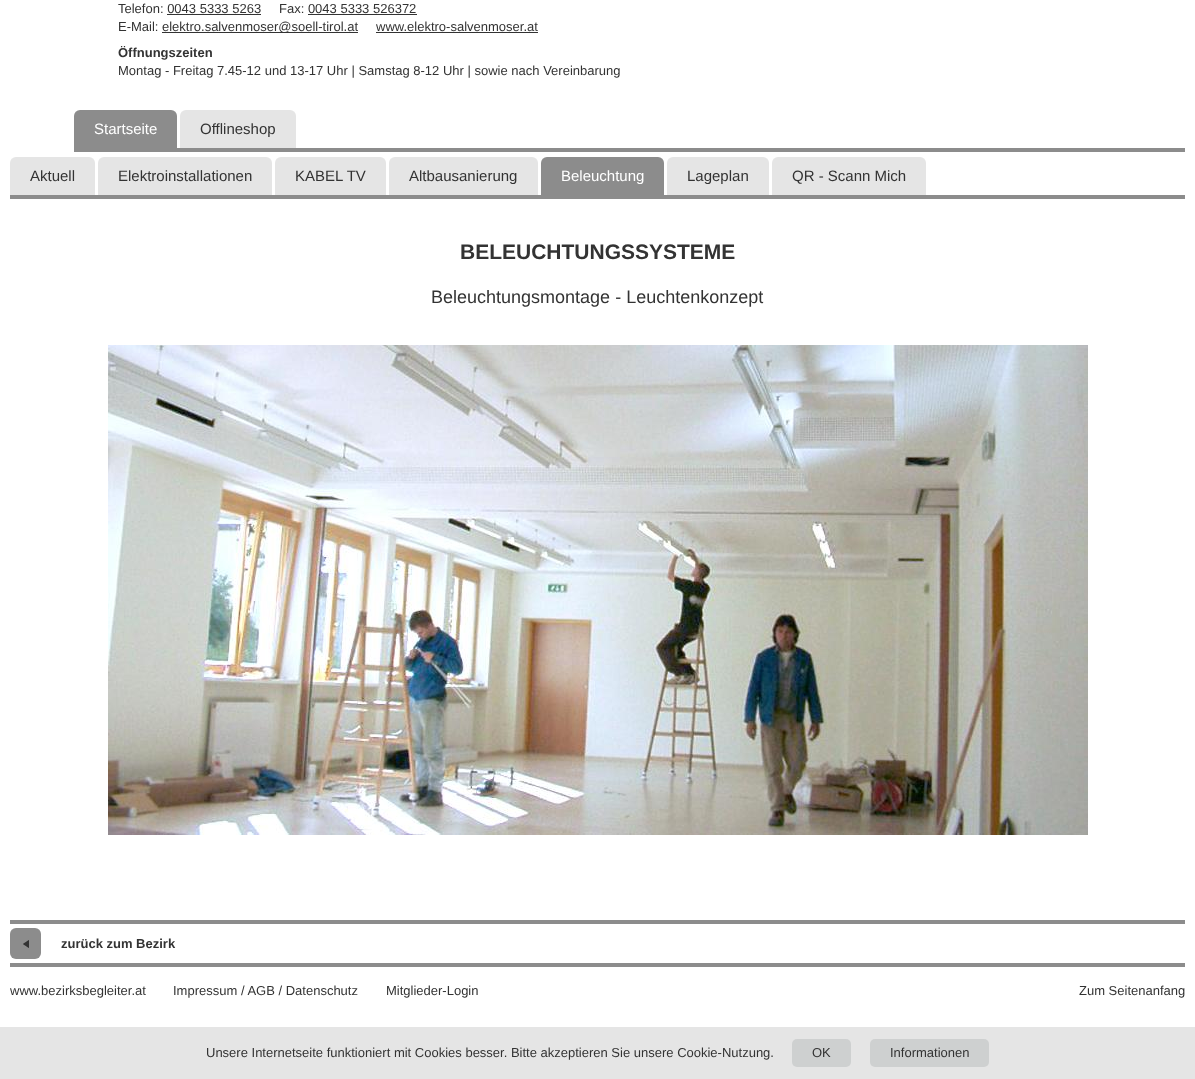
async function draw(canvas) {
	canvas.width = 1195;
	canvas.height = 1079;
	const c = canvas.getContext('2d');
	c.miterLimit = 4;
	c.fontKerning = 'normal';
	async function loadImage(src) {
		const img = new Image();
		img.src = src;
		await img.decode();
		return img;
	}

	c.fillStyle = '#fff';
	c.fillRect(0, 0, 1195, 1079);
	c.font = '13px Liberation Sans';
	c.fillStyle = '#333';
	c.fillText('Telefon: 0043 5333 5263', 118, 13);
	c.fillRect(167, 14, 94, 1);
	c.fillText('Fax: 0043 5333 526372', 279, 13);
	c.fillRect(308, 14, 109, 1);
	c.fillText('E-Mail:', 118, 31);
	c.fillRect(162, 32, 196, 1);
	c.fillText('elektro.salvenmoser@soell-tirol.at', 162, 31);
	c.fillText('www.elektro-salvenmoser.at', 376, 31);
	c.fillRect(376, 32, 162, 1);
	c.font = 'bold 13px Liberation Sans';
	c.fillText('Öffnungszeiten', 118, 57);
	c.font = '13px Liberation Sans';
	c.fillText('Montag - Freitag 7.45-12 und 13-17 Uhr | Samstag 8-12 Uhr | sowie nach Vereinbarung', 118, 75);
	c.fillStyle = '#8c8c8c';
	c.fillRect(74, 148, 1111, 4);
	c.beginPath();
	c.roundRect(74, 110, 103, 38, [6, 6, 0, 0]);
	c.fill();
	c.font = '15px Liberation Sans';
	c.fillStyle = '#fff';
	c.fillText('Startseite', 94, 134);
	c.fillStyle = '#e5e5e5';
	c.beginPath();
	c.roundRect(180, 110, 116, 38, [6, 6, 0, 0]);
	c.fill();
	c.fillStyle = '#333';
	c.fillText('Offlineshop', 200, 134);
	c.fillStyle = '#8c8c8c';
	c.fillRect(10, 195, 1175, 4);
	c.fillStyle = '#e5e5e5';
	c.beginPath();
	c.roundRect(10, 157, 85, 38, [6, 6, 0, 0]);
	c.fill();
	c.fillStyle = '#333';
	c.fillText('Aktuell', 30, 181);
	c.fillStyle = '#e5e5e5';
	c.beginPath();
	c.roundRect(98, 157, 174, 38, [6, 6, 0, 0]);
	c.fill();
	c.fillStyle = '#333';
	c.fillText('Elektroinstallationen', 118, 181);
	c.fillStyle = '#e5e5e5';
	c.beginPath();
	c.roundRect(275, 157, 111, 38, [6, 6, 0, 0]);
	c.fill();
	c.fillStyle = '#333';
	c.fillText('KABEL TV', 295, 181);
	c.fillStyle = '#e5e5e5';
	c.beginPath();
	c.roundRect(389, 157, 149, 38, [6, 6, 0, 0]);
	c.fill();
	c.fillStyle = '#333';
	c.fillText('Altbausanierung', 409, 181);
	c.fillStyle = '#8c8c8c';
	c.beginPath();
	c.roundRect(541, 157, 123, 38, [6, 6, 0, 0]);
	c.fill();
	c.fillStyle = '#fff';
	c.fillText('Beleuchtung', 561, 181);
	c.fillStyle = '#e5e5e5';
	c.beginPath();
	c.roundRect(667, 157, 102, 38, [6, 6, 0, 0]);
	c.fill();
	c.fillStyle = '#333';
	c.fillText('Lageplan', 687, 181);
	c.fillStyle = '#e5e5e5';
	c.beginPath();
	c.roundRect(772, 157, 154, 38, [6, 6, 0, 0]);
	c.fill();
	c.fillStyle = '#333';
	c.fillText('QR - Scann Mich', 792, 181);
	c.font = 'bold 21px Liberation Sans';
	c.fillText('BELEUCHTUNGSSYSTEME', 460, 259);
	c.font = '18px Liberation Sans';
	c.fillText('Beleuchtungsmontage - Leuchtenkonzept', 431, 303);
	c.drawImage(await loadImage('img1.png'), 108, 345, 980, 490);
	c.fillStyle = '#8c8c8c';
	c.fillRect(10, 920, 1175, 4);
	c.beginPath();
	c.roundRect(10, 928, 31, 31, 6);
	c.fill();
	c.drawImage(await loadImage('img2.png'), 23, 940, 6, 8);
	c.font = 'bold 13px Liberation Sans';
	c.fillStyle = '#333';
	c.fillText('zurück zum Bezirk', 61, 948);
	c.fillStyle = '#8c8c8c';
	c.fillRect(10, 963, 1175, 4);
	c.font = '13px Liberation Sans';
	c.fillStyle = '#333';
	for (const [text, x, y] of [
		['www.bezirksbegleiter.at', 10, 995],
		['Impressum / AGB / Datenschutz', 173, 995],
		['Mitglieder-Login', 386, 995],
		['Zum Seitenanfang', 1079, 995],
	]) {
		c.fillText(text, x, y);
	}
	c.fillStyle = '#e5e5e5';
	c.fillRect(0, 1027, 1195, 52);
	c.fillStyle = '#333';
	c.fillText('Unsere Internetseite funktioniert mit Cookies besser. Bitte akzeptieren Sie unsere Cookie-Nutzung.', 206, 1057);
	c.fillStyle = '#ced0d0';
	c.beginPath();
	c.roundRect(792, 1039, 59, 28, 5);
	c.fill();
	c.fillStyle = '#333';
	c.fillText('OK', 812, 1057);
	c.fillStyle = '#ced0d0';
	c.beginPath();
	c.roundRect(870, 1039, 119, 28, 5);
	c.fill();
	c.fillStyle = '#333';
	c.fillText('Informationen', 890, 1057);
}

draw(document.querySelector('canvas'));
